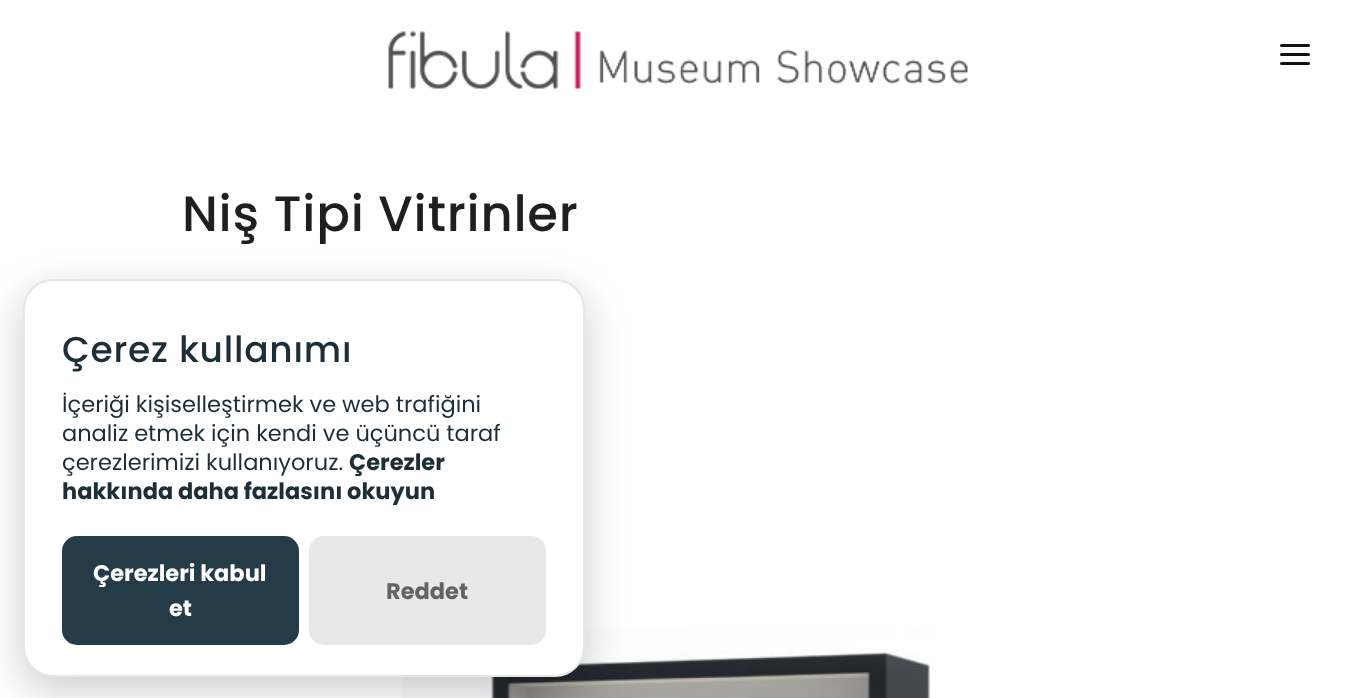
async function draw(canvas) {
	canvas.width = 1354;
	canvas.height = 698;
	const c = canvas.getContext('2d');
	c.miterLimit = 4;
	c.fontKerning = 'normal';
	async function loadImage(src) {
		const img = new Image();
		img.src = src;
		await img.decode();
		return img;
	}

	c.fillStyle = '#fff';
	c.fillRect(0, 0, 1354, 698);
	c.drawImage(await loadImage('img1.png'), 388, 31, 580, 58);
	c.fillStyle = '#111';
	c.beginPath();
	c.roundRect(1280, 53, 30, 3, 1.5);
	c.fill();
	c.beginPath();
	c.roundRect(1280, 44, 30, 3, 1.5);
	c.fill();
	c.beginPath();
	c.roundRect(1280, 62, 30, 3, 1.5);
	c.fill();
	c.letterSpacing = '0.75px';
	c.font = '500 49.75px Poppins';
	c.fillStyle = '#1f1f1f';
	c.fillText('Niş Tipi Vitrinler', 182, 231);
	c.drawImage(await loadImage('img2.png'), 402, 626, 528, 72);
	c.fillStyle = '#02020333';
	c.filter = 'blur(20px)';
	c.beginPath();
	c.roundRect(23, 293, 562, 397, 30);
	c.fill();
	c.filter = 'none';
	c.fillStyle = '#fff';
	c.beginPath();
	c.roundRect(24, 280, 560, 396, 29);
	c.fill();
	c.strokeStyle = '#e6e6e6';
	c.lineWidth = 2;
	c.stroke();
	c.font = '500 36px Poppins';
	c.fillStyle = '#1d2e38';
	c.fillText('Çerez kullanımı', 62, 362);
	c.letterSpacing = '0px';
	c.font = '22.5px Poppins';
	for (const [text, x, y] of [
		['İçeriği kişiselleştirmek ve web trafiğini', 62, 412],
		['analiz etmek için kendi ve üçüncü taraf', 62, 441],
		['çerezlerimizi kullanıyoruz.', 62, 470],
	]) {
		c.fillText(text, x, y);
	}
	c.font = 'bold 22.5px Poppins';
	c.fillText('Çerezler', 349, 470);
	c.fillText('hakkında daha fazlasını okuyun', 62, 499);
	c.fillStyle = '#253b48';
	c.beginPath();
	c.roundRect(62, 536, 237, 109, 15);
	c.fill();
	c.fillStyle = '#fff';
	c.fillText('Çerezleri kabul', 93, 581);
	c.fillText('et', 169, 616);
	c.fillStyle = '#e8e8e8';
	c.beginPath();
	c.roundRect(309, 536, 237, 109, 15);
	c.fill();
	c.fillStyle = '#636363';
	c.fillText('Reddet', 386, 599);
}

draw(document.querySelector('canvas'));
